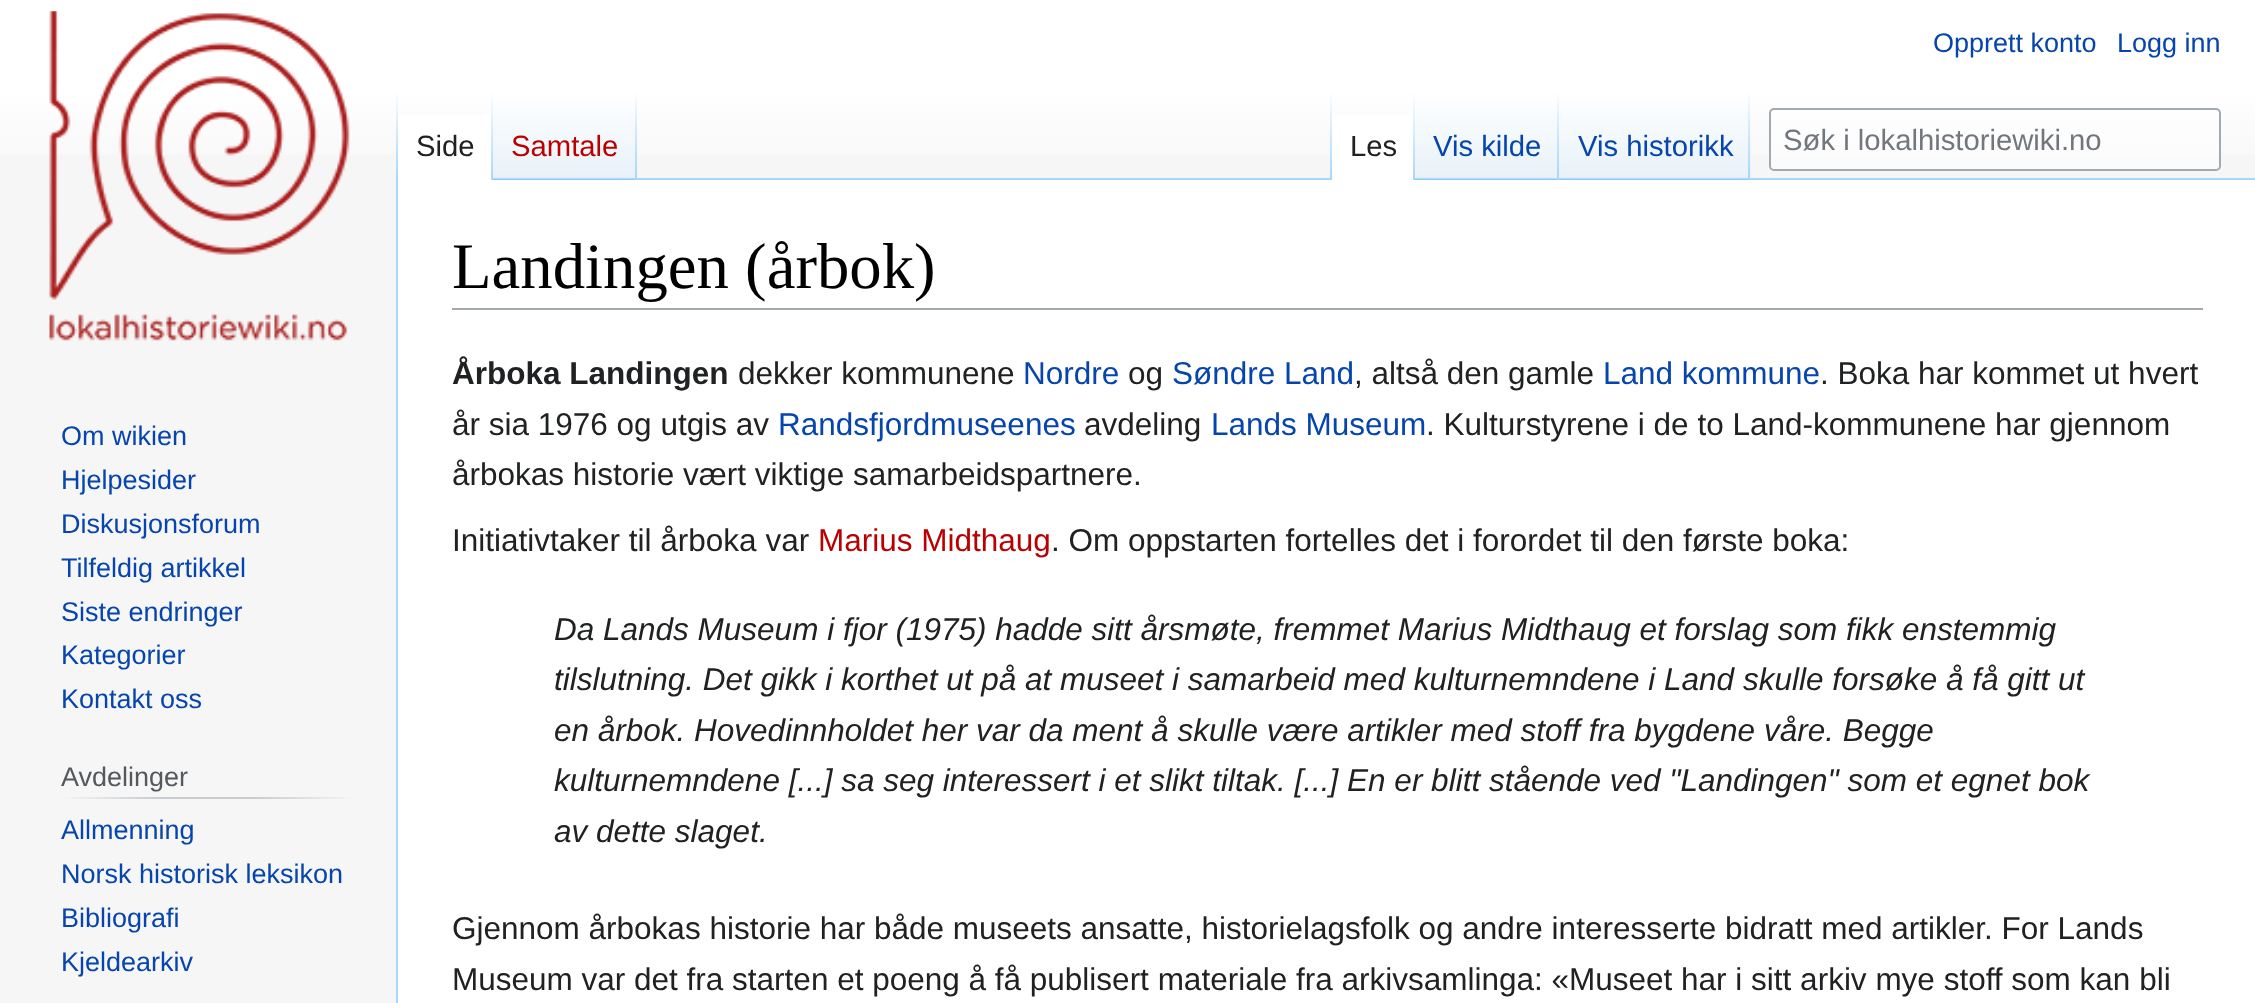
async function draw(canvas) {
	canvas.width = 2255;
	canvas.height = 1003;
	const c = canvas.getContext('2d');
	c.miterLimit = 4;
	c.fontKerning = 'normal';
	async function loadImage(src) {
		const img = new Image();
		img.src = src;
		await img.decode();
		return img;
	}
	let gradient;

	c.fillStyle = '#f6f6f6';
	c.fillRect(0, 0, 2255, 1003);
	gradient = c.createLinearGradient(1128, 0, 1128, 180);
	gradient.addColorStop(0.5, '#fff');
	gradient.addColorStop(1, '#f6f6f6');
	c.fillStyle = gradient;
	c.fillRect(0, 0, 2255, 155);
	c.font = '27px Liberation Sans';
	c.fillStyle = '#0645ad';
	c.fillText('Opprett konto', 1933, 52);
	c.fillText('Logg inn', 2117, 52);
	c.fillStyle = '#a7d7f9';
	c.fillRect(396, 178, 2, 825);
	gradient = c.createLinearGradient(397, 90, 397, 180);
	gradient.addColorStop(0, '#a7d7f900');
	gradient.addColorStop(1, '#a7d7f9');
	c.fillStyle = gradient;
	c.fillRect(396, 90, 2, 90);
	c.fillStyle = '#fff';
	c.fillRect(398, 115, 93, 65);
	gradient = c.createLinearGradient(492, 90, 492, 180);
	gradient.addColorStop(0, '#fff');
	gradient.addColorStop(1, '#a7d7f9');
	c.fillStyle = gradient;
	c.fillRect(491, 90, 2, 90);
	c.font = '29.25px Liberation Sans';
	c.fillStyle = '#202122';
	c.fillText('Side', 416, 156);
	gradient = c.createLinearGradient(565, 180, 565, 90);
	gradient.addColorStop(0, '#77c1f6');
	gradient.addColorStop(0.03, '#e8f2f8');
	gradient.addColorStop(1, '#fff');
	c.fillStyle = gradient;
	c.fillRect(493, 103, 144, 77);
	gradient = c.createLinearGradient(636, 90, 636, 180);
	gradient.addColorStop(0, '#a7d7f900');
	gradient.addColorStop(1, '#a7d7f9');
	c.fillStyle = gradient;
	c.fillRect(635, 90, 2, 90);
	c.fillStyle = '#ba0000';
	c.fillText('Samtale', 511, 156);
	c.fillStyle = '#a7d7f9';
	c.fillRect(637, 178, 1618, 2);
	gradient = c.createLinearGradient(1331, 90, 1331, 180);
	gradient.addColorStop(0, '#a7d7f900');
	gradient.addColorStop(1, '#a7d7f9');
	c.fillStyle = gradient;
	c.fillRect(1330, 90, 2, 90);
	c.fillStyle = '#fff';
	c.fillRect(1332, 115, 81, 65);
	gradient = c.createLinearGradient(1414, 90, 1414, 180);
	gradient.addColorStop(0, '#fff');
	gradient.addColorStop(1, '#a7d7f9');
	c.fillStyle = gradient;
	c.fillRect(1413, 90, 2, 90);
	c.fillStyle = '#202122';
	c.fillText('Les', 1350, 156);
	gradient = c.createLinearGradient(1487, 180, 1487, 90);
	gradient.addColorStop(0, '#77c1f6');
	gradient.addColorStop(0.03, '#e8f2f8');
	gradient.addColorStop(1, '#fff');
	c.fillStyle = gradient;
	c.fillRect(1415, 103, 144, 77);
	gradient = c.createLinearGradient(1558, 90, 1558, 180);
	gradient.addColorStop(0, '#a7d7f900');
	gradient.addColorStop(1, '#a7d7f9');
	c.fillStyle = gradient;
	c.fillRect(1557, 90, 2, 90);
	c.fillStyle = '#0645ad';
	c.fillText('Vis kilde', 1433, 156);
	gradient = c.createLinearGradient(1655, 180, 1655, 90);
	gradient.addColorStop(0, '#77c1f6');
	gradient.addColorStop(0.03, '#e8f2f8');
	gradient.addColorStop(1, '#fff');
	c.fillStyle = gradient;
	c.fillRect(1559, 103, 192, 77);
	gradient = c.createLinearGradient(1749, 90, 1749, 180);
	gradient.addColorStop(0, '#a7d7f900');
	gradient.addColorStop(1, '#a7d7f9');
	c.fillStyle = gradient;
	c.fillRect(1748, 90, 2, 90);
	c.fillStyle = '#0645ad';
	c.fillText('Vis historikk', 1578, 156);
	c.fillStyle = '#ffffff80';
	c.beginPath();
	c.roundRect(1770, 109, 450, 61, 4);
	c.fill();
	c.strokeStyle = '#a2a9b1';
	c.lineWidth = 2;
	c.stroke();
	c.fillStyle = '#72777d';
	c.fillText('Søk i lokalhistoriewiki.no', 1783, 150);
	c.drawImage(await loadImage('img1.png'), 49, 11, 301, 330);
	c.font = '27px Liberation Sans';
	c.fillStyle = '#0645ad';
	for (const [text, x, y] of [
		['Om wikien', 61, 445],
		['Hjelpesider', 61, 489],
		['Diskusjonsforum', 61, 533],
		['Tilfeldig artikkel', 61, 577],
		['Siste endringer', 61, 621],
		['Kategorier', 61, 664],
		['Kontakt oss', 61, 708],
	]) {
		c.fillText(text, x, y);
	}
	gradient = c.createLinearGradient(61, 798, 356, 798);
	gradient.addColorStop(0, '#f6f6f6');
	gradient.addColorStop(0.33, '#c8ccd1');
	gradient.addColorStop(0.66, '#c8ccd1');
	gradient.addColorStop(1, '#f6f6f6');
	c.fillStyle = gradient;
	c.fillRect(61, 797, 295, 2);
	c.fillStyle = '#54595d';
	c.fillText('Avdelinger', 61, 786);
	c.fillStyle = '#0645ad';
	for (const [text, x, y] of [
		['Allmenning', 61, 839],
		['Norsk historisk leksikon', 61, 883],
		['Bibliografi', 61, 927],
		['Kjeldearkiv', 61, 971],
	]) {
		c.fillText(text, x, y);
	}
	c.fillStyle = '#fff';
	c.fillRect(398, 180, 1857, 823);
	c.fillStyle = '#a2a9b1';
	c.fillRect(452, 308, 1751, 2);
	c.font = '64.75px Liberation Serif';
	c.fillStyle = '#000';
	c.fillText('Landingen (årbok)', 452, 288);
	c.font = 'bold 31.5px Liberation Sans';
	c.fillStyle = '#202122';
	c.fillText('Årboka Landingen', 452, 384);
	c.font = '31.5px Liberation Sans';
	c.fillText('dekker kommunene', 738, 384);
	c.fillStyle = '#0645ad';
	c.fillText('Nordre', 1023, 384);
	c.fillStyle = '#202122';
	c.fillText('og', 1128, 384);
	c.fillStyle = '#0645ad';
	c.fillText('Søndre Land', 1172, 384);
	c.fillStyle = '#202122';
	c.fillText(', altså den gamle', 1354, 384);
	c.fillStyle = '#0645ad';
	c.fillText('Land kommune', 1603, 384);
	c.fillStyle = '#202122';
	c.fillText('. Boka har kommet ut hvert', 1820, 384);
	c.fillText('år sia 1976 og utgis av', 452, 435);
	c.fillStyle = '#0645ad';
	c.fillText('Randsfjordmuseenes', 778, 435);
	c.fillStyle = '#202122';
	c.fillText('avdeling', 1084, 435);
	c.fillStyle = '#0645ad';
	c.fillText('Lands Museum', 1211, 435);
	c.fillStyle = '#202122';
	for (const [text, x, y] of [
		['. Kulturstyrene i de to Land-kommunene har gjennom', 1426, 435],
		['årbokas historie vært viktige samarbeidspartnere.', 452, 485],
		['Initiativtaker til årboka var', 452, 551],
	]) {
		c.fillText(text, x, y);
	}
	c.fillStyle = '#ba0000';
	c.fillText('Marius Midthaug', 818, 551);
	c.fillStyle = '#202122';
	c.fillText('. Om oppstarten fortelles det i forordet til den første boka:', 1051, 551);
	c.font = 'italic 31.5px Liberation Sans';
	for (const [text, x, y] of [
		['Da Lands Museum i fjor (1975) hadde sitt årsmøte, fremmet Marius Midthaug et forslag som fikk enstemmig', 554, 640],
		['tilslutning. Det gikk i korthet ut på at museet i samarbeid med kulturnemndene i Land skulle forsøke å få gitt ut', 554, 690],
		['en årbok. Hovedinnholdet her var da ment å skulle være artikler med stoff fra bygdene våre. Begge', 554, 741],
		['kulturnemndene [...] sa seg interessert i et slikt tiltak. [...] En er blitt stående ved "Landingen" som et egnet bok', 554, 791],
		['av dette slaget.', 554, 842],
	]) {
		c.fillText(text, x, y);
	}
	c.font = '31.5px Liberation Sans';
	c.fillText('Gjennom årbokas historie har både museets ansatte, historielagsfolk og andre interesserte bidratt med artikler. For Lands', 452, 939);
	c.fillText('Museum var det fra starten et poeng å få publisert materiale fra arkivsamlinga: «Museet har i sitt arkiv mye stoff som kan bli', 452, 990);
}

draw(document.querySelector('canvas'));
